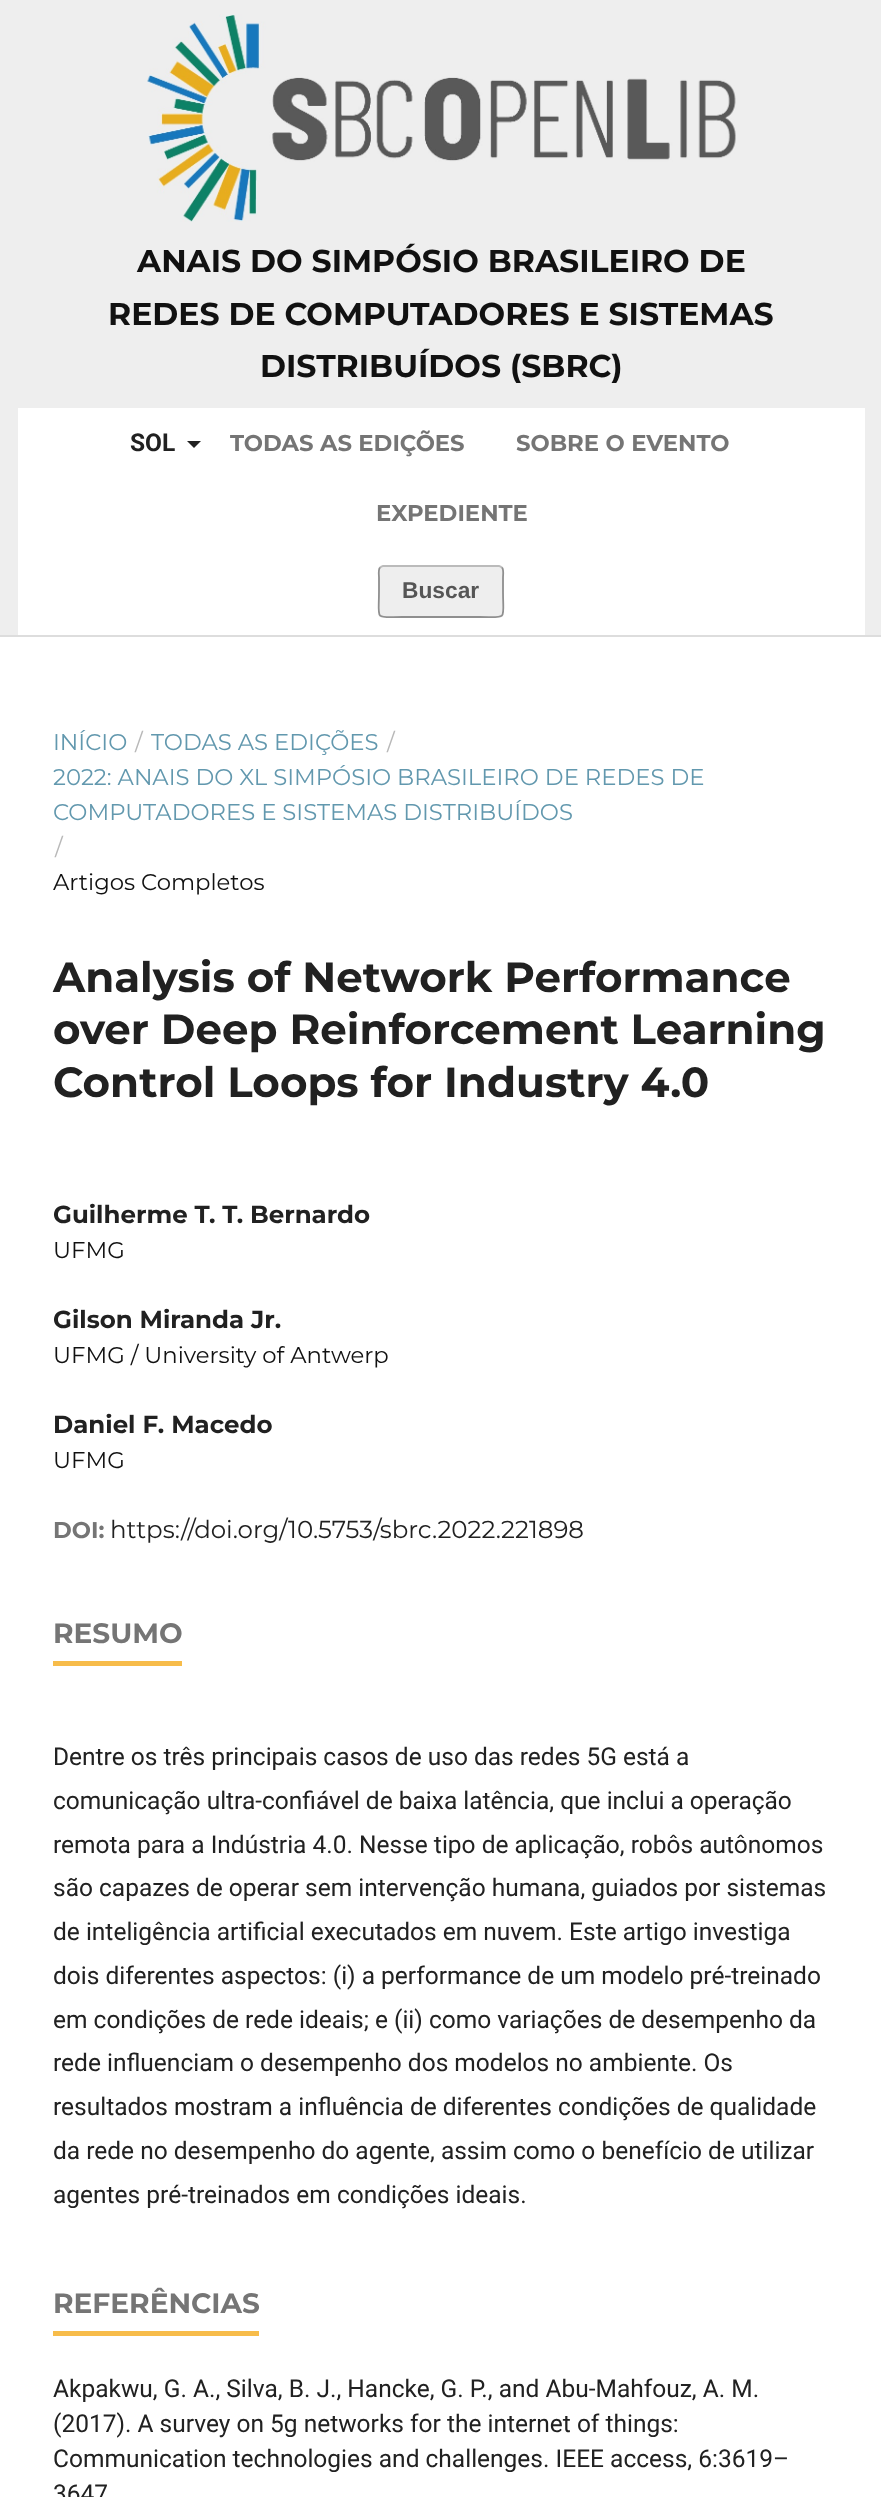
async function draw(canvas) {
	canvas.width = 881;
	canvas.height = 2497;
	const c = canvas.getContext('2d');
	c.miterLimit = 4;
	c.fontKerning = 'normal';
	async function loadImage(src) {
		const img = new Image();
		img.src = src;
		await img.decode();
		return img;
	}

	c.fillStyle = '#fff';
	c.fillRect(0, 0, 881, 2497);
	c.fillStyle = '#eee';
	c.fillRect(0, 0, 881, 635);
	c.fillStyle = '#ddd';
	c.fillRect(0, 635, 881, 2);
	c.drawImage(await loadImage('img1.png'), 147, 14, 589, 208);
	c.font = 'bold 31.5px Montserrat';
	c.fillStyle = '#111';
	for (const [text, x, y] of [
		['ANAIS DO SIMPÓSIO BRASILEIRO DE', 137, 272],
		['REDES DE COMPUTADORES E SISTEMAS', 108, 325],
		['DISTRIBUÍDOS (SBRC)', 260, 377],
	]) {
		c.fillText(text, x, y);
	}
	c.fillStyle = '#fff';
	c.fillRect(18, 408, 847, 227);
	c.font = 'bold 24.5px Roboto';
	c.fillStyle = '#212121';
	c.fillText('SOL', 130, 451);
	c.beginPath();
	c.moveTo(187, 441);
	c.lineTo(201, 441);
	c.lineTo(194, 448);
	c.closePath();
	c.fill();
	c.font = 'bold 22.75px Montserrat';
	c.fillStyle = '#757575';
	for (const [text, x, y] of [
		['TODAS AS EDIÇÕES', 230, 451],
		['SOBRE O EVENTO', 516, 451],
		['EXPEDIENTE', 376, 521],
	]) {
		c.fillText(text, x, y);
	}
	c.fillStyle = '#eee';
	c.beginPath();
	c.roundRect(378, 565, 126, 53, 5);
	c.fill();
	c.beginPath();
	c.moveTo(380, 567.5);
	c.lineTo(383, 566);
	c.lineTo(479.5, 566);
	c.lineTo(499, 566);
	c.lineTo(502, 567.5);
	c.strokeStyle = '#bbb';
	c.lineWidth = 1.8;
	c.stroke();
	c.beginPath();
	c.moveTo(502, 567.5);
	c.bezierCurveTo(504, 570, 503, 575, 503, 577.5);
	c.lineTo(503, 591.5);
	c.bezierCurveTo(503, 621, 508.5, 617, 479.5, 617);
	c.lineTo(402.5, 617);
	c.bezierCurveTo(373.5, 617, 379, 621, 379, 591.5);
	c.lineTo(379, 577.5);
	c.bezierCurveTo(379, 575, 378, 570, 380, 567.5);
	c.strokeStyle = '#00000066';
	c.stroke();
	c.font = 'bold 22.75px Liberation Sans';
	c.fillStyle = '#555';
	c.fillText('Buscar', 402, 598);
	c.font = '22.75px Montserrat';
	c.fillStyle = '#6298ae';
	c.fillText('INÍCIO', 53, 750);
	c.fillStyle = '#b8b8b8';
	c.fillText('/', 135, 750);
	c.fillStyle = '#6298ae';
	c.fillText('TODAS AS EDIÇÕES', 151, 750);
	c.fillStyle = '#b8b8b8';
	c.fillText('/', 387, 750);
	c.fillStyle = '#6298ae';
	c.fillText('2022: ANAIS DO XL SIMPÓSIO BRASILEIRO DE REDES DE', 53, 785);
	c.fillText('COMPUTADORES E SISTEMAS DISTRIBUÍDOS', 53, 820);
	c.fillStyle = '#b8b8b8';
	c.fillText('/', 55, 855);
	c.fillStyle = '#111';
	c.fillText('Artigos Completos', 53, 890);
	c.font = 'bold 42px Montserrat';
	c.fillStyle = '#212121';
	for (const [text, x, y] of [
		['Analysis of Network Performance', 53, 992],
		['over Deep Reinforcement Learning', 53, 1044],
		['Control Loops for Industry 4.0', 53, 1097],
	]) {
		c.fillText(text, x, y);
	}
	c.font = 'bold 24.5px Montserrat';
	c.fillText('Guilherme T. T. Bernardo', 53, 1223);
	c.font = '22.75px Montserrat';
	c.fillStyle = '#111';
	c.fillText('UFMG', 53, 1258);
	c.font = 'bold 24.5px Montserrat';
	c.fillStyle = '#212121';
	c.fillText('Gilson Miranda Jr.', 53, 1328);
	c.font = '22.75px Montserrat';
	c.fillStyle = '#111';
	c.fillText('UFMG / University of Antwerp', 53, 1363);
	c.font = 'bold 24.5px Montserrat';
	c.fillStyle = '#212121';
	c.fillText('Daniel F. Macedo', 53, 1433);
	c.font = '22.75px Montserrat';
	c.fillStyle = '#111';
	c.fillText('UFMG', 53, 1468);
	c.font = 'bold 22.75px Montserrat';
	c.fillStyle = '#757575';
	c.fillText('DOI:', 53, 1538);
	c.font = '24.5px Montserrat';
	c.fillStyle = '#212121';
	c.fillText('https://doi.org/10.5753/sbrc.2022.221898', 110, 1538);
	c.fillStyle = '#f7bc4a';
	c.fillRect(53, 1661, 129, 5);
	c.font = 'bold 28px Montserrat';
	c.fillStyle = '#757575';
	c.fillText('RESUMO', 53, 1643);
	c.font = '24.5px Roboto';
	c.fillStyle = '#212121';
	for (const [text, x, y] of [
		['Dentre os três principais casos de uso das redes 5G está a', 53, 1765],
		['comunicação ultra-confiável de baixa latência, que inclui a operação', 53, 1809],
		['remota para a Indústria 4.0. Nesse tipo de aplicação, robôs autônomos', 53, 1853],
		['são capazes de operar sem intervenção humana, guiados por sistemas', 53, 1896],
		['de inteligência artificial executados em nuvem. Este artigo investiga', 53, 1940],
		['dois diferentes aspectos: (i) a performance de um modelo pré-treinado', 53, 1984],
		['em condições de rede ideais; e (ii) como variações de desempenho da', 53, 2028],
		['rede influenciam o desempenho dos modelos no ambiente. Os', 53, 2071],
		['resultados mostram a influência de diferentes condições de qualidade', 53, 2115],
		['da rede no desempenho do agente, assim como o benefício de utilizar', 53, 2159],
		['agentes pré-treinados em condições ideais.', 53, 2203],
	]) {
		c.fillText(text, x, y);
	}
	c.fillStyle = '#f7bc4a';
	c.fillRect(53, 2331, 206, 5);
	c.font = 'bold 28px Montserrat';
	c.fillStyle = '#757575';
	c.fillText('REFERÊNCIAS', 53, 2313);
	c.font = '24.5px Roboto';
	c.fillStyle = '#212121';
	for (const [text, x, y] of [
		['Akpakwu, G. A., Silva, B. J., Hancke, G. P., and Abu-Mahfouz, A. M.', 53, 2397],
		['(2017). A survey on 5g networks for the internet of things:', 53, 2432],
		['Communication technologies and challenges. IEEE access, 6:3619–', 53, 2467],
		['3647', 53, 2502],
	]) {
		c.fillText(text, x, y);
	}
}

draw(document.querySelector('canvas'));
